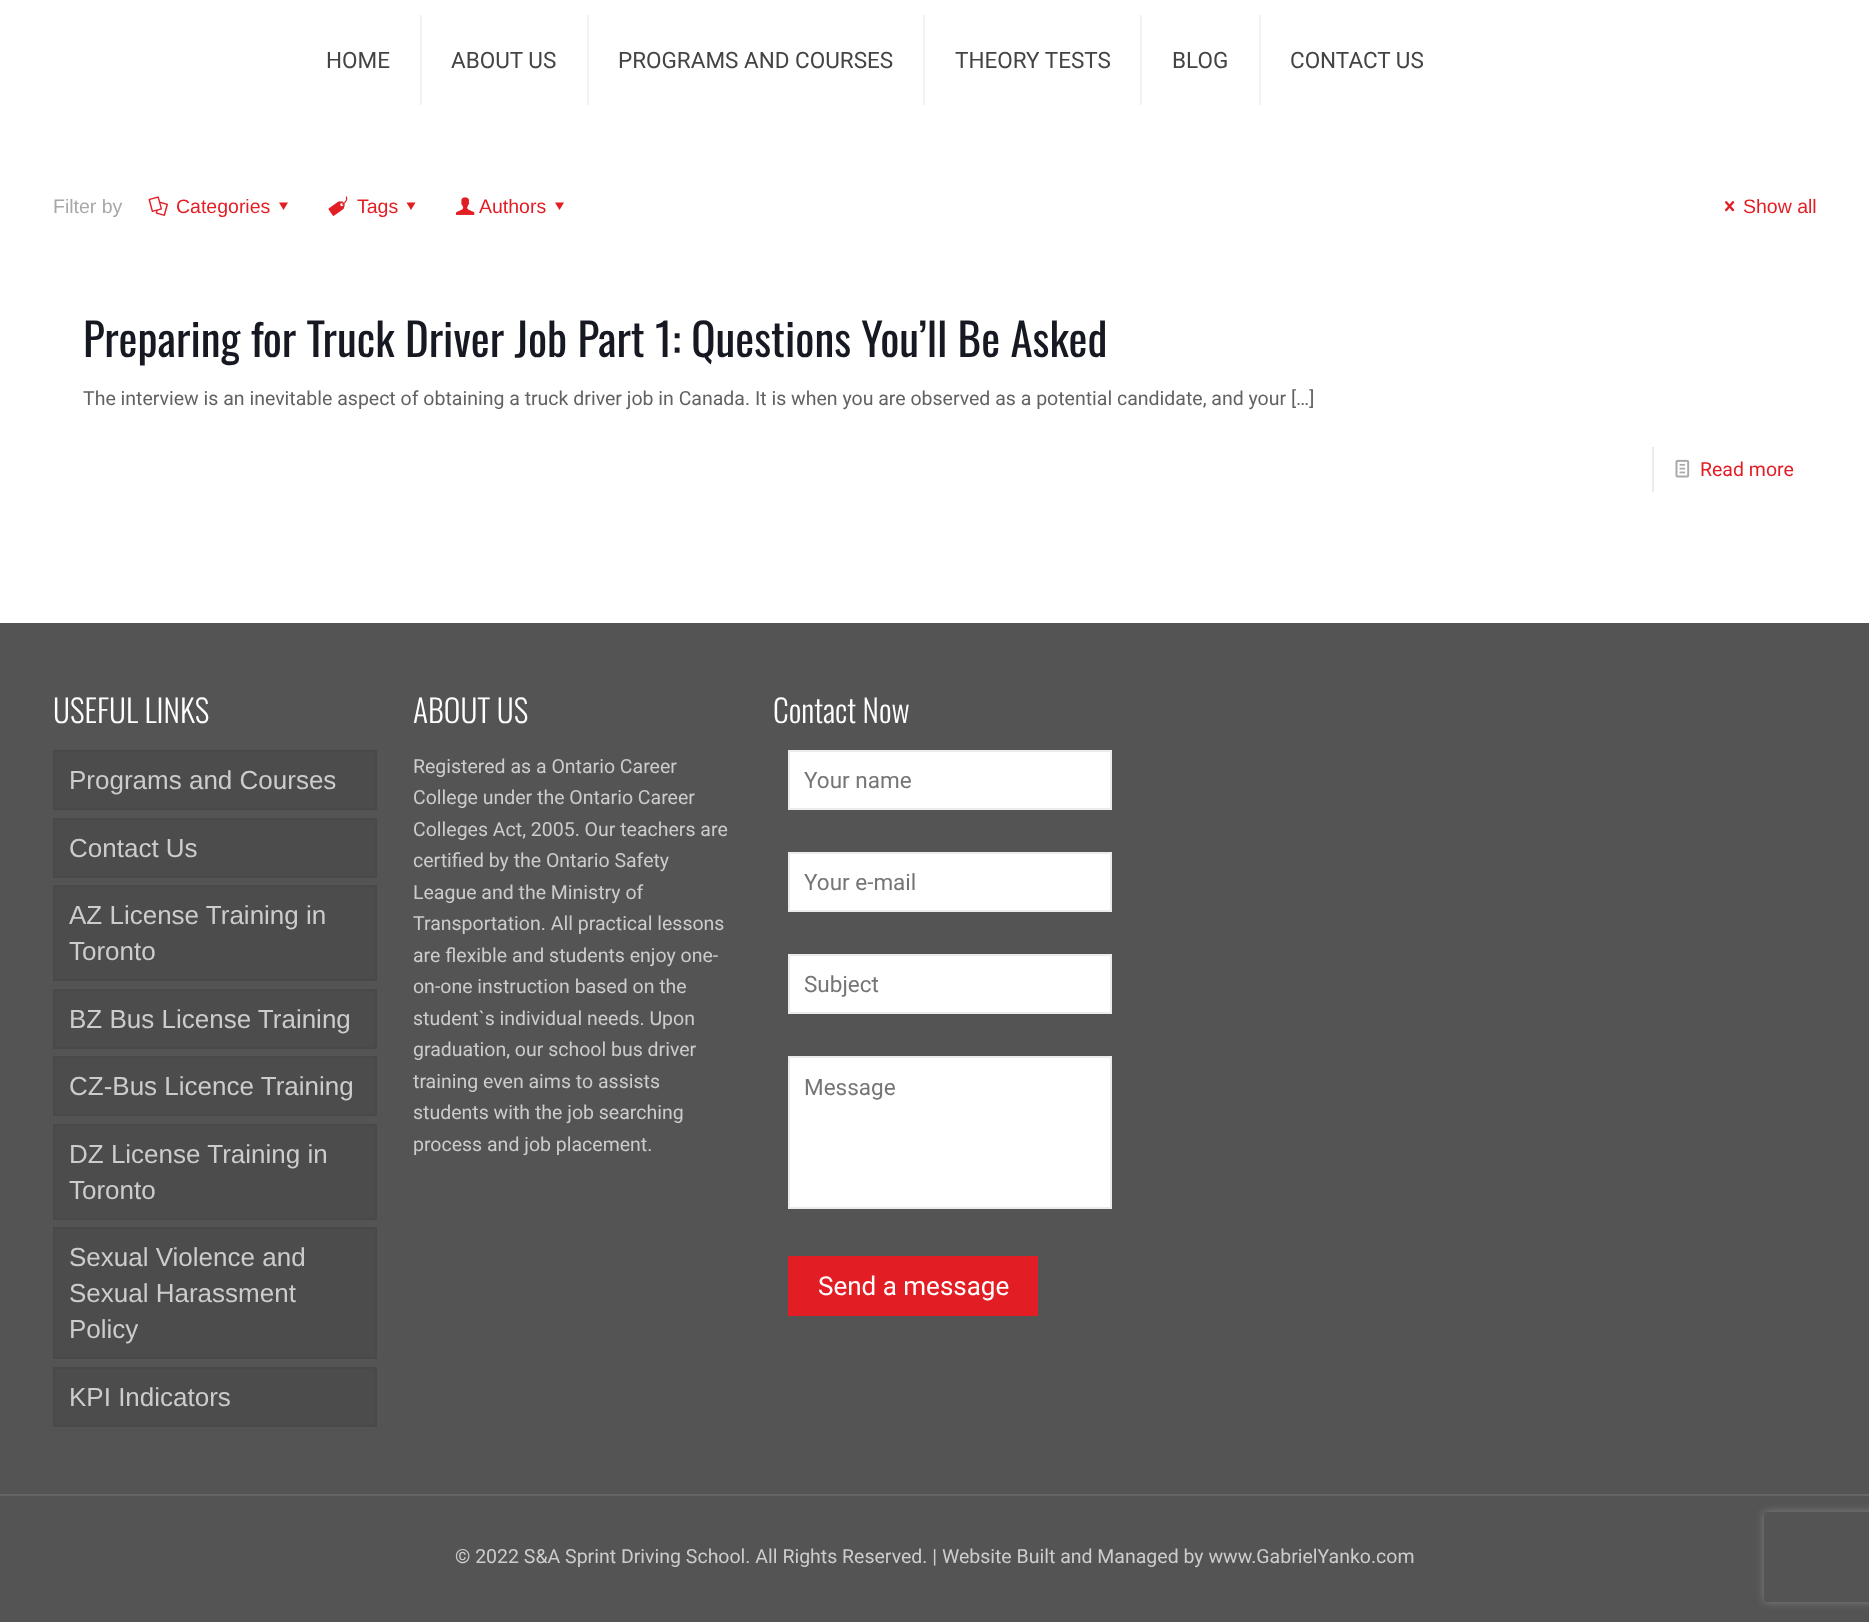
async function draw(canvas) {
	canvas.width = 1869;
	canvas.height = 1622;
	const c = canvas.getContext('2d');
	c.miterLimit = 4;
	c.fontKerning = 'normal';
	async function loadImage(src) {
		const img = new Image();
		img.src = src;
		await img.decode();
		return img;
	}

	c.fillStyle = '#fff';
	c.fillRect(0, 0, 1869, 1622);
	c.fillStyle = '#f2f2f2';
	c.fillRect(420, 15, 2, 90);
	c.font = '22.5px Roboto';
	c.fillStyle = '#444';
	c.fillText('HOME', 326, 68);
	c.fillStyle = '#f2f2f2';
	c.fillRect(587, 15, 2, 90);
	c.fillStyle = '#444';
	c.fillText('ABOUT US', 451, 68);
	c.fillStyle = '#f2f2f2';
	c.fillRect(923, 15, 2, 90);
	c.fillStyle = '#444';
	c.fillText('PROGRAMS AND COURSES', 618, 68);
	c.fillStyle = '#f2f2f2';
	c.fillRect(1140, 15, 2, 90);
	c.fillStyle = '#444';
	c.fillText('THEORY TESTS', 955, 68);
	c.fillStyle = '#f2f2f2';
	c.fillRect(1259, 15, 2, 90);
	c.fillStyle = '#444';
	c.fillText('BLOG', 1172, 68);
	c.fillText('CONTACT US', 1290, 68);
	c.font = '19.5px Liberation Sans';
	c.fillStyle = '#a8a8a8';
	c.fillText('Filter by', 53, 213);
	c.drawImage(await loadImage('img1.png'), 148, 196, 20, 20);
	c.fillStyle = '#e31d24';
	c.fillText('Categories', 176, 213);
	c.beginPath();
	c.moveTo(288, 202.5);
	c.lineTo(283.5, 210);
	c.lineTo(279, 202.5);
	c.closePath();
	c.fill();
	c.drawImage(await loadImage('img2.png'), 328, 196, 20, 20);
	c.fillText('Tags', 357, 213);
	c.beginPath();
	c.moveTo(415.5, 202.5);
	c.lineTo(411, 210);
	c.lineTo(406.5, 202.5);
	c.closePath();
	c.fill();
	c.drawImage(await loadImage('img3.png'), 456, 197, 19, 18);
	c.fillText('Authors', 479, 213);
	c.beginPath();
	c.moveTo(564, 202.5);
	c.lineTo(559.5, 210);
	c.lineTo(555, 202.5);
	c.closePath();
	c.fill();
	c.drawImage(await loadImage('img4.png'), 1725, 201, 10, 11);
	c.fillText('Show all', 1743, 213);
	c.font = '45px Oswald';
	c.fillStyle = '#161922';
	c.fillText('Preparing for Truck Driver Job Part 1: Questions You’ll Be Asked', 83, 357);
	c.font = '19.5px Roboto';
	c.fillStyle = '#626262';
	c.fillText('The interview is an inevitable aspect of obtaining a truck driver job in Canada. It is when you are observed as a potential candidate, and your […]', 83, 405);
	c.fillStyle = '#ebebeb';
	c.fillRect(1652, 447, 2, 45);
	c.drawImage(await loadImage('img5.png'), 1675, 459, 15, 19);
	c.fillStyle = '#e31d24';
	c.fillText('Read more', 1700, 476);
	c.fillStyle = '#545454';
	c.fillRect(0, 623, 1869, 999);
	c.font = '300 31.5px Oswald';
	c.fillStyle = '#fff';
	c.fillText('USEFUL LINKS', 53, 723);
	c.fillStyle = '#4c4c4c';
	c.beginPath();
	c.rect(54, 751, 322, 58);
	c.fill();
	c.strokeStyle = '#494949';
	c.lineWidth = 2;
	c.stroke();
	c.font = '26px Liberation Sans';
	c.fillStyle = '#ccc';
	c.fillText('Programs and Courses', 69, 789);
	c.fillStyle = '#4c4c4c';
	c.beginPath();
	c.rect(54, 819, 322, 58);
	c.fill();
	c.stroke();
	c.fillStyle = '#ccc';
	c.fillText('Contact Us', 69, 857);
	c.fillStyle = '#4c4c4c';
	c.beginPath();
	c.rect(54, 886, 322, 94);
	c.fill();
	c.stroke();
	c.fillStyle = '#ccc';
	c.fillText('AZ License Training in', 69, 924);
	c.fillText('Toronto', 69, 960);
	c.fillStyle = '#4c4c4c';
	c.beginPath();
	c.rect(54, 990, 322, 58);
	c.fill();
	c.stroke();
	c.fillStyle = '#ccc';
	c.fillText('BZ Bus License Training', 69, 1028);
	c.fillStyle = '#4c4c4c';
	c.beginPath();
	c.rect(54, 1057, 322, 58);
	c.fill();
	c.stroke();
	c.fillStyle = '#ccc';
	c.fillText('CZ-Bus Licence Training', 69, 1095);
	c.fillStyle = '#4c4c4c';
	c.beginPath();
	c.rect(54, 1125, 322, 94);
	c.fill();
	c.stroke();
	c.fillStyle = '#ccc';
	c.fillText('DZ License Training in', 69, 1163);
	c.fillText('Toronto', 69, 1199);
	c.fillStyle = '#4c4c4c';
	c.beginPath();
	c.rect(54, 1228, 322, 130);
	c.fill();
	c.stroke();
	c.fillStyle = '#ccc';
	for (const [text, x, y] of [
		['Sexual Violence and', 69, 1266],
		['Sexual Harassment', 69, 1302],
		['Policy', 69, 1338],
	]) {
		c.fillText(text, x, y);
	}
	c.fillStyle = '#4c4c4c';
	c.beginPath();
	c.rect(54, 1368, 322, 58);
	c.fill();
	c.stroke();
	c.fillStyle = '#ccc';
	c.fillText('KPI Indicators', 69, 1406);
	c.font = '300 31.5px Oswald';
	c.fillStyle = '#fff';
	c.fillText('ABOUT US', 413, 723);
	c.font = '19.5px Roboto';
	c.fillStyle = '#ccc';
	for (const [text, x, y] of [
		['Registered as a Ontario Career', 413, 773],
		['College under the Ontario Career', 413, 804],
		['Colleges Act, 2005. Our teachers are', 413, 836],
		['certified by the Ontario Safety', 413, 867],
		['League and the Ministry of', 413, 899],
		['Transportation. All practical lessons', 413, 930],
		['are flexible and students enjoy one-', 413, 962],
		['on-one instruction based on the', 413, 993],
		['student`s individual needs. Upon', 413, 1025],
		['graduation, our school bus driver', 413, 1056],
		['training even aims to assists', 413, 1088],
		['students with the job searching', 413, 1119],
		['process and job placement.', 413, 1151],
	]) {
		c.fillText(text, x, y);
	}
	c.font = '300 31.5px Oswald';
	c.fillStyle = '#fff';
	c.fillText('Contact Now', 773, 723);
	c.beginPath();
	c.rect(789, 751, 322, 58);
	c.fill();
	c.strokeStyle = '#ebebeb';
	c.stroke();
	c.font = '22.5px Roboto';
	c.fillStyle = '#757575';
	c.fillText('Your name', 804, 788);
	c.fillStyle = '#fff';
	c.beginPath();
	c.rect(789, 853, 322, 58);
	c.fill();
	c.stroke();
	c.fillStyle = '#757575';
	c.fillText('Your e-mail', 804, 890);
	c.fillStyle = '#fff';
	c.beginPath();
	c.rect(789, 955, 322, 58);
	c.fill();
	c.stroke();
	c.fillStyle = '#757575';
	c.fillText('Subject', 804, 992);
	c.fillStyle = '#fff';
	c.beginPath();
	c.rect(789, 1057, 322, 151);
	c.fill();
	c.stroke();
	c.fillStyle = '#757575';
	c.fillText('Message', 804, 1095);
	c.fillStyle = '#e31d24';
	c.fillRect(788, 1256, 250, 60);
	c.font = '26px Roboto';
	c.fillStyle = '#fff';
	c.fillText('Send a message', 818, 1295);
	c.fillStyle = '#656565';
	c.fillRect(0, 1494, 1869, 2);
	c.font = '19.5px Roboto';
	c.fillStyle = '#ccc';
	c.fillText('© 2022 S&A Sprint Driving School. All Rights Reserved. | Website Built and Managed by www.GabrielYanko.com', 455, 1563);
	c.save();
	c.beginPath();
	c.moveTo(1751, 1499);
	c.lineTo(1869, 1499);
	c.lineTo(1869, 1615);
	c.lineTo(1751, 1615);
	c.closePath();
	c.moveTo(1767, 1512);
	c.lineTo(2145, 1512);
	c.bezierCurveTo(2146.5, 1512, 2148, 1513.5, 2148, 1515);
	c.lineTo(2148, 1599);
	c.bezierCurveTo(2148, 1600.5, 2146.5, 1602, 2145, 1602);
	c.lineTo(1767, 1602);
	c.bezierCurveTo(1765.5, 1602, 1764, 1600.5, 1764, 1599);
	c.lineTo(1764, 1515);
	c.bezierCurveTo(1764, 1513.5, 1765.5, 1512, 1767, 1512);
	c.closePath();
	c.clip('evenodd');
	c.fillStyle = '#808080';
	c.filter = 'blur(4px)';
	c.beginPath();
	c.roundRect(1764, 1512, 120, 90, 3);
	c.fill();
	c.filter = 'none';
	c.restore();
}

draw(document.querySelector('canvas'));
